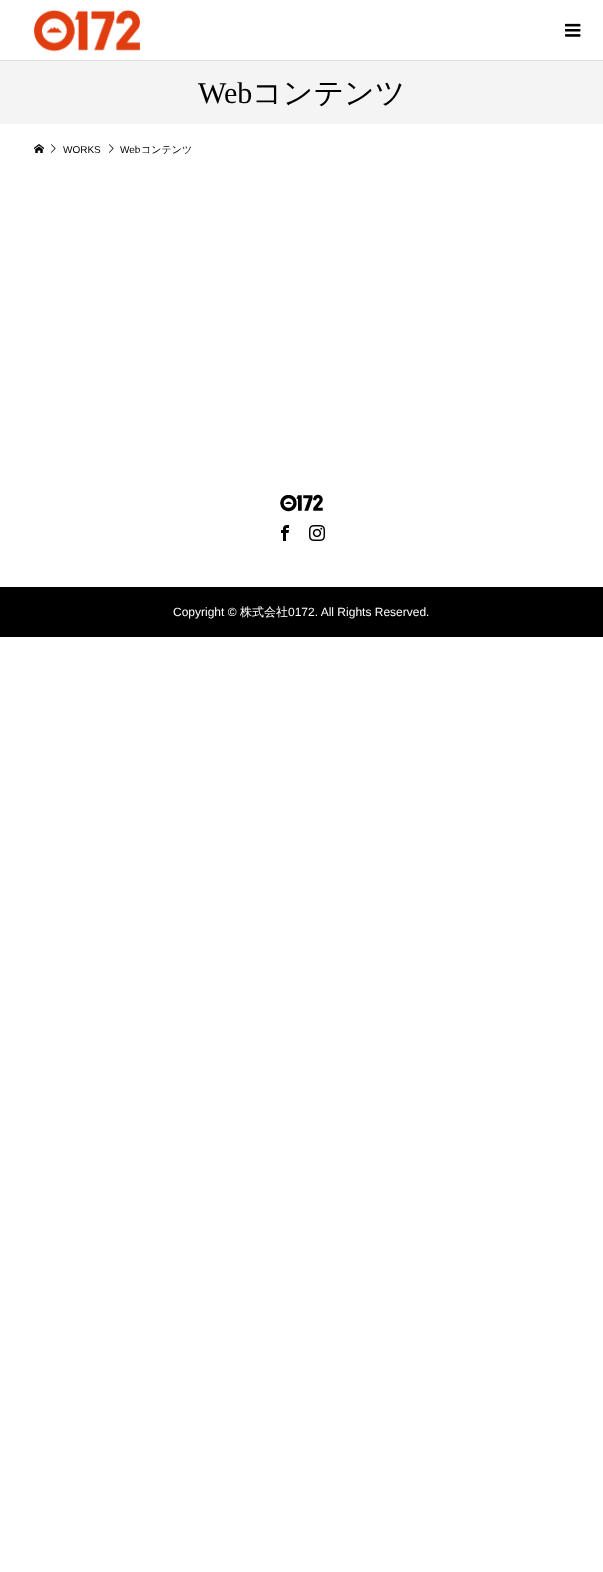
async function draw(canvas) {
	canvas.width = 603;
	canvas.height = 1572;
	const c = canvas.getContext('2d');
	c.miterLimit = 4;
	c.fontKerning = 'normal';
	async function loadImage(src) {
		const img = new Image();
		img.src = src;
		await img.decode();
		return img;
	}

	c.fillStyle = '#fff';
	c.fillRect(0, 0, 603, 1572);
	c.drawImage(await loadImage('img1.png'), 34, 9, 106, 43);
	c.drawImage(await loadImage('img2.png'), 565, 23, 16, 14);
	c.fillStyle = '#f4f4f4';
	c.fillRect(0, 61, 603, 63);
	c.fillStyle = '#ddd';
	c.fillRect(0, 60, 603, 1);
	c.font = '30px Liberation Serif';
	c.fillStyle = '#000';
	c.fillText('Web', 198, 103);
	c.font = '500 30px WenQuanYi Zen Hei';
	c.fillText('コンテンツ', 252, 103);
	c.drawImage(await loadImage('img3.png'), 34, 144, 10, 9);
	c.drawImage(await loadImage('img4.png'), 51, 144, 5, 9);
	c.font = '10px Liberation Sans';
	c.fillText('WORKS', 63, 153);
	c.drawImage(await loadImage('img4.png'), 109, 144, 5, 9);
	c.fillText('Web', 120, 153);
	c.font = '500 10px WenQuanYi Zen Hei';
	c.fillText('コンテンツ', 141, 153);
	c.drawImage(await loadImage('img5.png'), 280, 494, 43, 18);
	c.drawImage(await loadImage('img6.png'), 281, 525, 8, 16);
	c.drawImage(await loadImage('img7.png'), 309, 525, 16, 16);
	c.fillRect(0, 587, 603, 50);
	c.font = '12px Liberation Sans';
	c.fillStyle = '#fff';
	c.fillText('Copyright ©', 173, 616);
	c.font = '500 12px WenQuanYi Zen Hei';
	c.fillText('株式会社', 240, 616);
	c.font = '12px Liberation Sans';
	c.fillText('0172. All Rights Reserved.', 288, 616);
}

draw(document.querySelector('canvas'));
